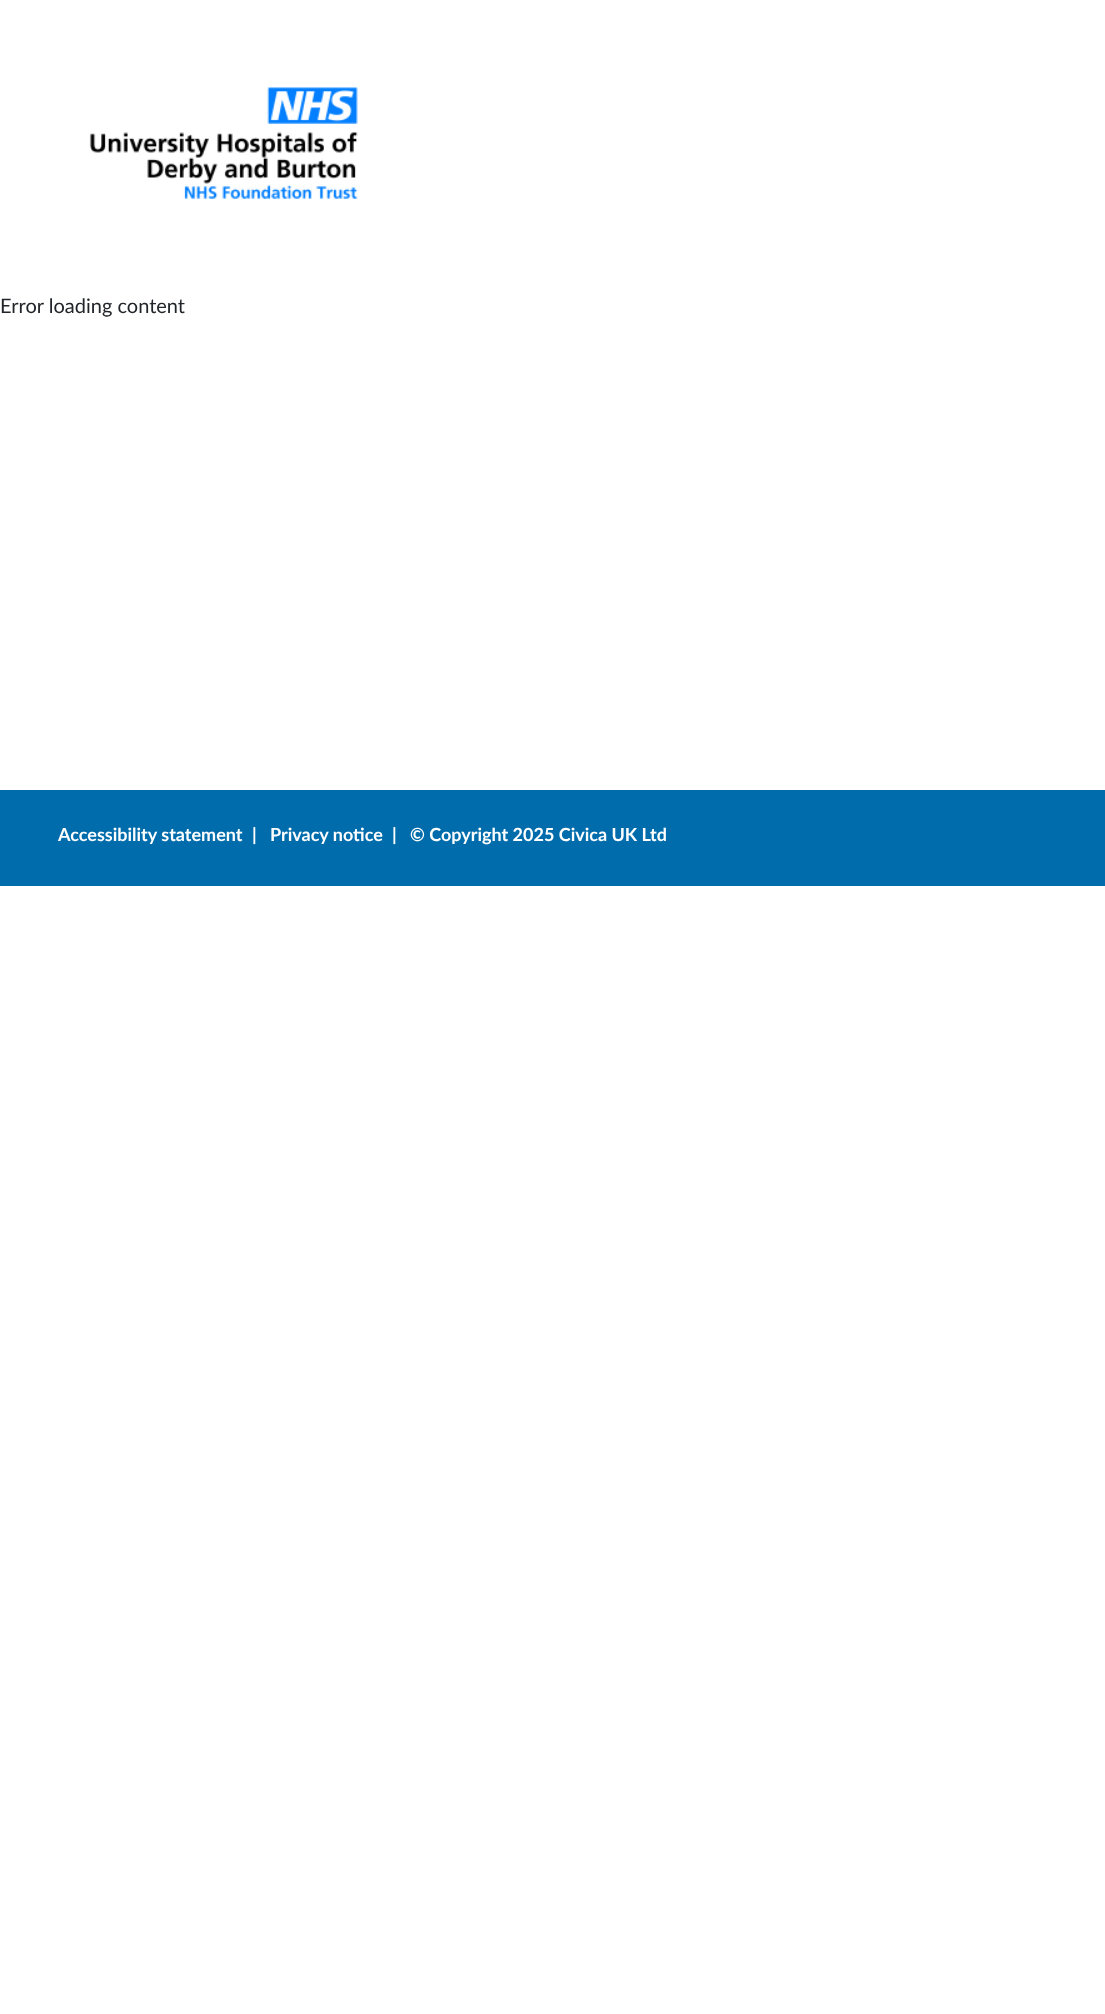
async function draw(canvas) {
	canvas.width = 1105;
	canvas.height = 2014;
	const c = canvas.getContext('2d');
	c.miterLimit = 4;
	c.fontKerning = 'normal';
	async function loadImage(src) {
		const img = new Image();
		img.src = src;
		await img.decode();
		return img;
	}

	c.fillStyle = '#fff';
	c.fillRect(0, 0, 1105, 2014);
	c.drawImage(await loadImage('img1.png'), 89, 87, 269, 112);
	c.font = '20px Lato';
	c.fillStyle = '#212529';
	c.fillText('Error loading content', 0, 313);
	c.fillStyle = '#006cac';
	c.fillRect(0, 790, 1105, 96);
	c.font = 'bold 18px Lato';
	c.fillStyle = '#fff';
	for (const [text, x, y] of [
		['Accessibility statement', 58, 841],
		['|', 252, 841],
		['Privacy notice', 270, 841],
		['|', 392, 841],
		['© Copyright 2025 Civica UK Ltd', 410, 841],
	]) {
		c.fillText(text, x, y);
	}
}

draw(document.querySelector('canvas'));
